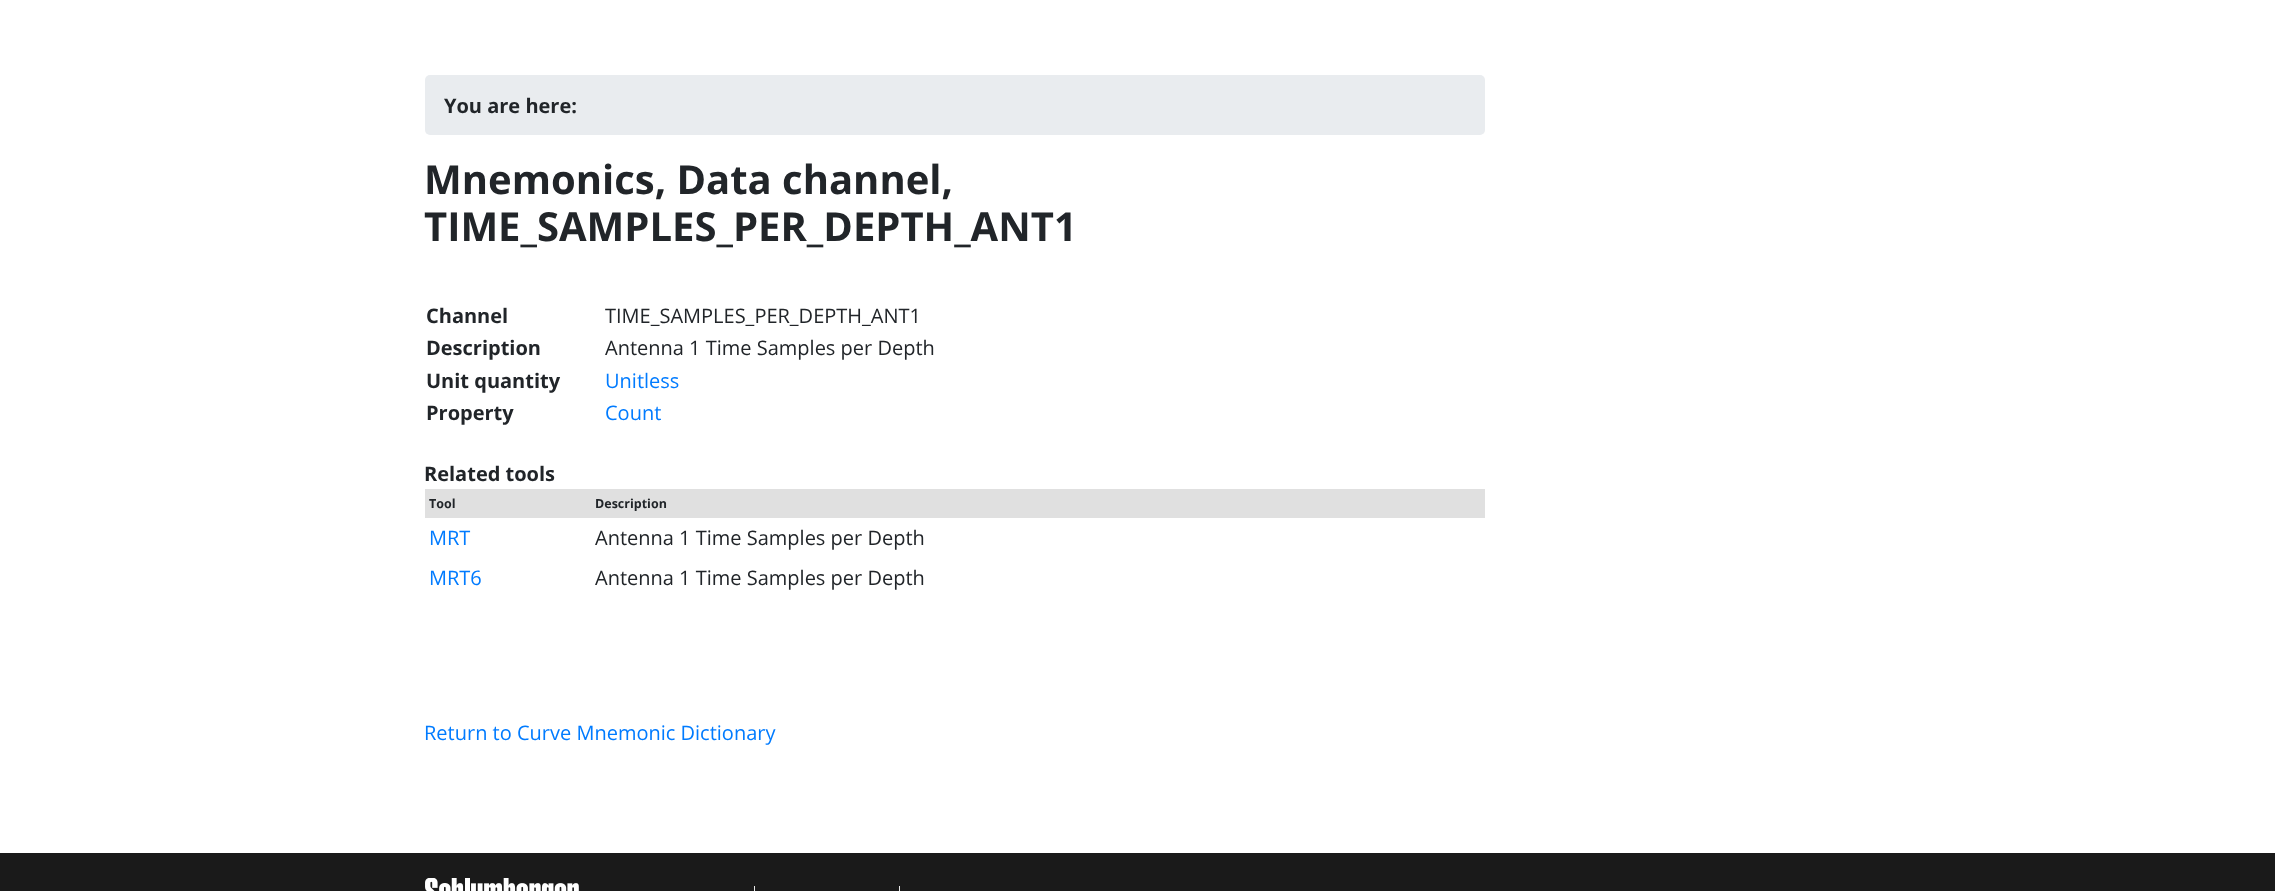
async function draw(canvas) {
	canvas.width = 2275;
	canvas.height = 891;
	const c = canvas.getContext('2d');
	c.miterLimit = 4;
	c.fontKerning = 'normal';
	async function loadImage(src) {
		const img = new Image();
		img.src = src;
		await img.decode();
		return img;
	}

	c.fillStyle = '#1a1a1a';
	c.fillRect(0, 0, 2275, 891);
	c.fillStyle = '#fff';
	c.fillRect(0, 0, 2275, 853);
	c.fillStyle = '#e9ecef';
	c.beginPath();
	c.roundRect(425, 75, 1060, 60, 5);
	c.fill();
	c.font = 'bold 20px Open Sans';
	c.fillStyle = '#212529';
	c.fillText('You are here:', 444, 113);
	c.font = 'bold 40px Open Sans';
	c.fillText('Mnemonics, Data channel,', 424, 194);
	c.fillText('TIME_SAMPLES_PER_DEPTH_ANT1', 424, 241);
	c.font = 'bold 20px Open Sans';
	c.fillText('Channel', 426, 323);
	c.font = '20px Open Sans';
	c.fillText('TIME_SAMPLES_PER_DEPTH_ANT1', 605, 323);
	c.font = 'bold 20px Open Sans';
	c.fillText('Description', 426, 355);
	c.font = '20px Open Sans';
	c.fillText('Antenna 1 Time Samples per Depth', 605, 355);
	c.font = 'bold 20px Open Sans';
	c.fillText('Unit quantity', 426, 388);
	c.font = '20px Open Sans';
	c.fillStyle = '#007bff';
	c.fillText('Unitless', 605, 388);
	c.font = 'bold 20px Open Sans';
	c.fillStyle = '#212529';
	c.fillText('Property', 426, 420);
	c.font = '20px Open Sans';
	c.fillStyle = '#007bff';
	c.fillText('Count', 605, 420);
	c.font = 'bold 20px Open Sans';
	c.fillStyle = '#212529';
	c.fillText('Related tools', 424, 481);
	c.fillStyle = '#e0e0e0';
	c.fillRect(425, 489, 1060, 29);
	c.font = 'bold 12.5px Open Sans';
	c.fillStyle = '#212529';
	c.fillText('Tool', 429, 508);
	c.fillText('Description', 595, 508);
	c.font = '20px Open Sans';
	c.fillStyle = '#007bff';
	c.fillText('MRT', 429, 545);
	c.fillStyle = '#212529';
	c.fillText('Antenna 1 Time Samples per Depth', 595, 545);
	c.fillStyle = '#007bff';
	c.fillText('MRT6', 429, 585);
	c.fillStyle = '#212529';
	c.fillText('Antenna 1 Time Samples per Depth', 595, 585);
	c.fillStyle = '#007bff';
	c.fillText('Return to Curve Mnemonic Dictionary', 424, 740);
	c.drawImage(await loadImage('img1.png'), 425, 878, 154, 13);
	c.fillStyle = '#e8e8e8';
	c.fillRect(754, 886, 1, 5);
	c.fillRect(899, 886, 1, 5);
}

draw(document.querySelector('canvas'));
